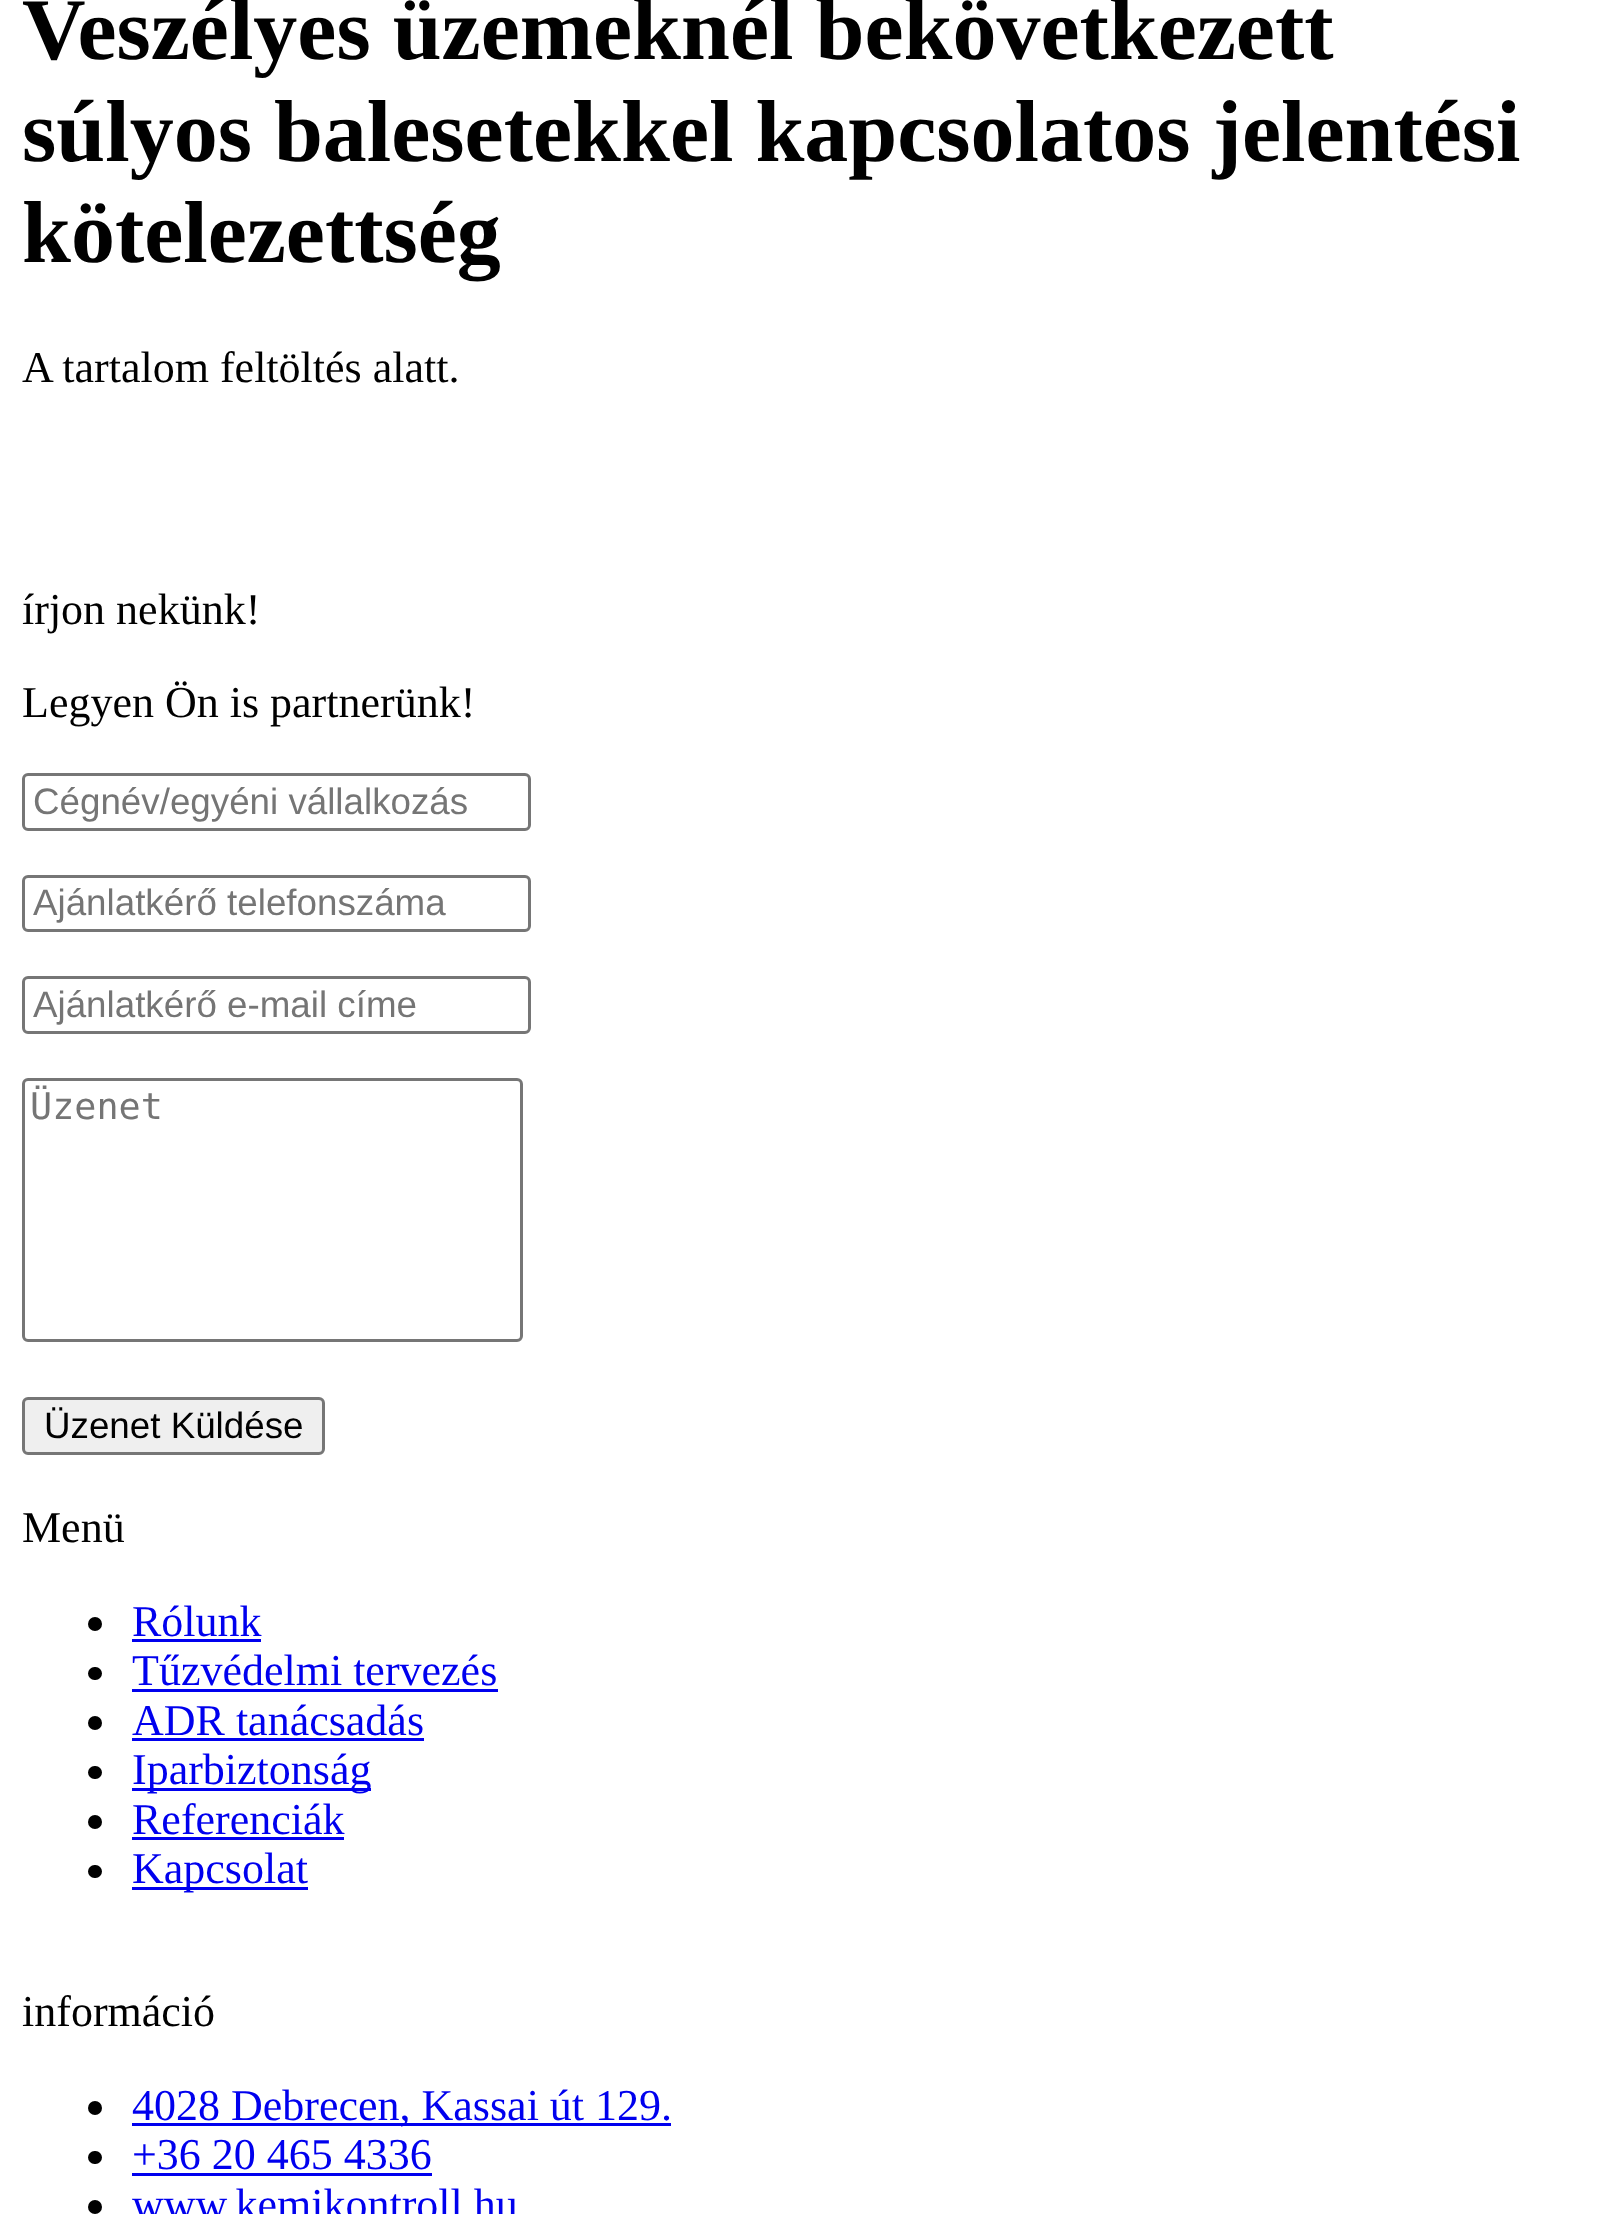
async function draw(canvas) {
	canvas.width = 1605;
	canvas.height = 2214;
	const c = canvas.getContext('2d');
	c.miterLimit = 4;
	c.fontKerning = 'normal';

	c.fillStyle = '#fff';
	c.fillRect(0, 0, 1605, 2214);
	c.font = 'bold 88px Liberation Serif';
	c.fillStyle = '#000';
	for (const [text, x, y] of [
		['Veszélyes üzemeknél bekövetkezett', 22, 59],
		['súlyos balesetekkel kapcsolatos jelentési', 22, 161],
		['kötelezettség', 22, 262],
	]) {
		c.fillText(text, x, y);
	}
	c.font = '44px Liberation Serif';
	for (const [text, x, y] of [
		['A tartalom feltöltés alatt.', 22, 382],
		['írjon nekünk!', 22, 624],
		['Legyen Ön is partnerünk!', 22, 717],
	]) {
		c.fillText(text, x, y);
	}
	c.beginPath();
	c.roundRect(23.5, 774.5, 506, 55, 4.5);
	c.strokeStyle = '#767676';
	c.lineWidth = 3;
	c.stroke();
	c.font = '36.75px Liberation Sans';
	c.fillStyle = '#757575';
	c.fillText('Cégnév/egyéni vállalkozás', 33, 814);
	c.beginPath();
	c.roundRect(23.5, 876.5, 506, 54, 4.5);
	c.stroke();
	c.fillText('Ajánlatkérő telefonszáma', 33, 915);
	c.beginPath();
	c.roundRect(23.5, 977.5, 506, 55, 4.5);
	c.stroke();
	c.fillText('Ajánlatkérő e-mail címe', 33, 1017);
	c.beginPath();
	c.roundRect(23.5, 1079.5, 498, 261, 4.5);
	c.stroke();
	c.font = '36.75px DejaVu Sans Mono';
	c.fillText('Üzenet', 30, 1119);
	c.fillStyle = '#efefef';
	c.beginPath();
	c.roundRect(23.5, 1398.5, 300, 55, 4.5);
	c.fill();
	c.stroke();
	c.font = '36.75px Liberation Sans';
	c.fillStyle = '#000';
	c.fillText('Üzenet Küldése', 44, 1438);
	c.font = '44px Liberation Serif';
	c.fillText('Menü', 22, 1542);
	c.beginPath();
	c.arc(95, 1624, 7, 0, 2 * Math.PI);
	c.fill();
	c.fillStyle = '#00e';
	c.fillText('Rólunk', 132, 1636);
	c.fillRect(132, 1639, 129, 3);
	c.fillStyle = '#000';
	c.beginPath();
	c.roundRect(88, 1667, 14, 13, 6.5);
	c.fill();
	c.fillStyle = '#00e';
	c.fillText('Tűzvédelmi tervezés', 132, 1685);
	c.fillRect(132, 1689, 366, 3);
	c.fillStyle = '#000';
	c.beginPath();
	c.arc(95, 1723, 7, 0, 2 * Math.PI);
	c.fill();
	c.fillStyle = '#00e';
	c.fillText('ADR tanácsadás', 132, 1735);
	c.fillRect(132, 1738, 292, 3);
	c.fillStyle = '#000';
	c.beginPath();
	c.roundRect(88, 1766, 14, 13, 6.5);
	c.fill();
	c.fillStyle = '#00e';
	c.fillRect(132, 1788, 239, 3);
	c.fillText('Iparbiztonság', 132, 1784);
	c.fillStyle = '#000';
	c.beginPath();
	c.arc(95, 1822, 7, 0, 2 * Math.PI);
	c.fill();
	c.fillStyle = '#00e';
	c.fillText('Referenciák', 132, 1834);
	c.fillRect(132, 1837, 212, 3);
	c.fillStyle = '#000';
	c.beginPath();
	c.roundRect(88, 1865, 14, 13, 6.5);
	c.fill();
	c.fillStyle = '#00e';
	c.fillRect(132, 1887, 176, 3);
	c.fillText('Kapcsolat', 132, 1883);
	c.fillStyle = '#000';
	c.fillText('információ', 22, 2026);
	c.beginPath();
	c.arc(95, 2108, 7, 0, 2 * Math.PI);
	c.fill();
	c.fillStyle = '#00e';
	c.fillRect(132, 2123, 539, 3);
	c.fillText('4028 Debrecen, Kassai út 129.', 132, 2120);
	c.fillStyle = '#000';
	c.beginPath();
	c.roundRect(88, 2151, 14, 13, 6.5);
	c.fill();
	c.fillStyle = '#00e';
	c.fillText('+36 20 465 4336', 132, 2169);
	c.fillRect(132, 2173, 300, 3);
	c.fillStyle = '#000';
	c.beginPath();
	c.arc(95, 2207, 7, 0, 2 * Math.PI);
	c.fill();
	c.fillStyle = '#00e';
	c.fillText('www.kemikontroll.hu', 132, 2219);
}

draw(document.querySelector('canvas'));
